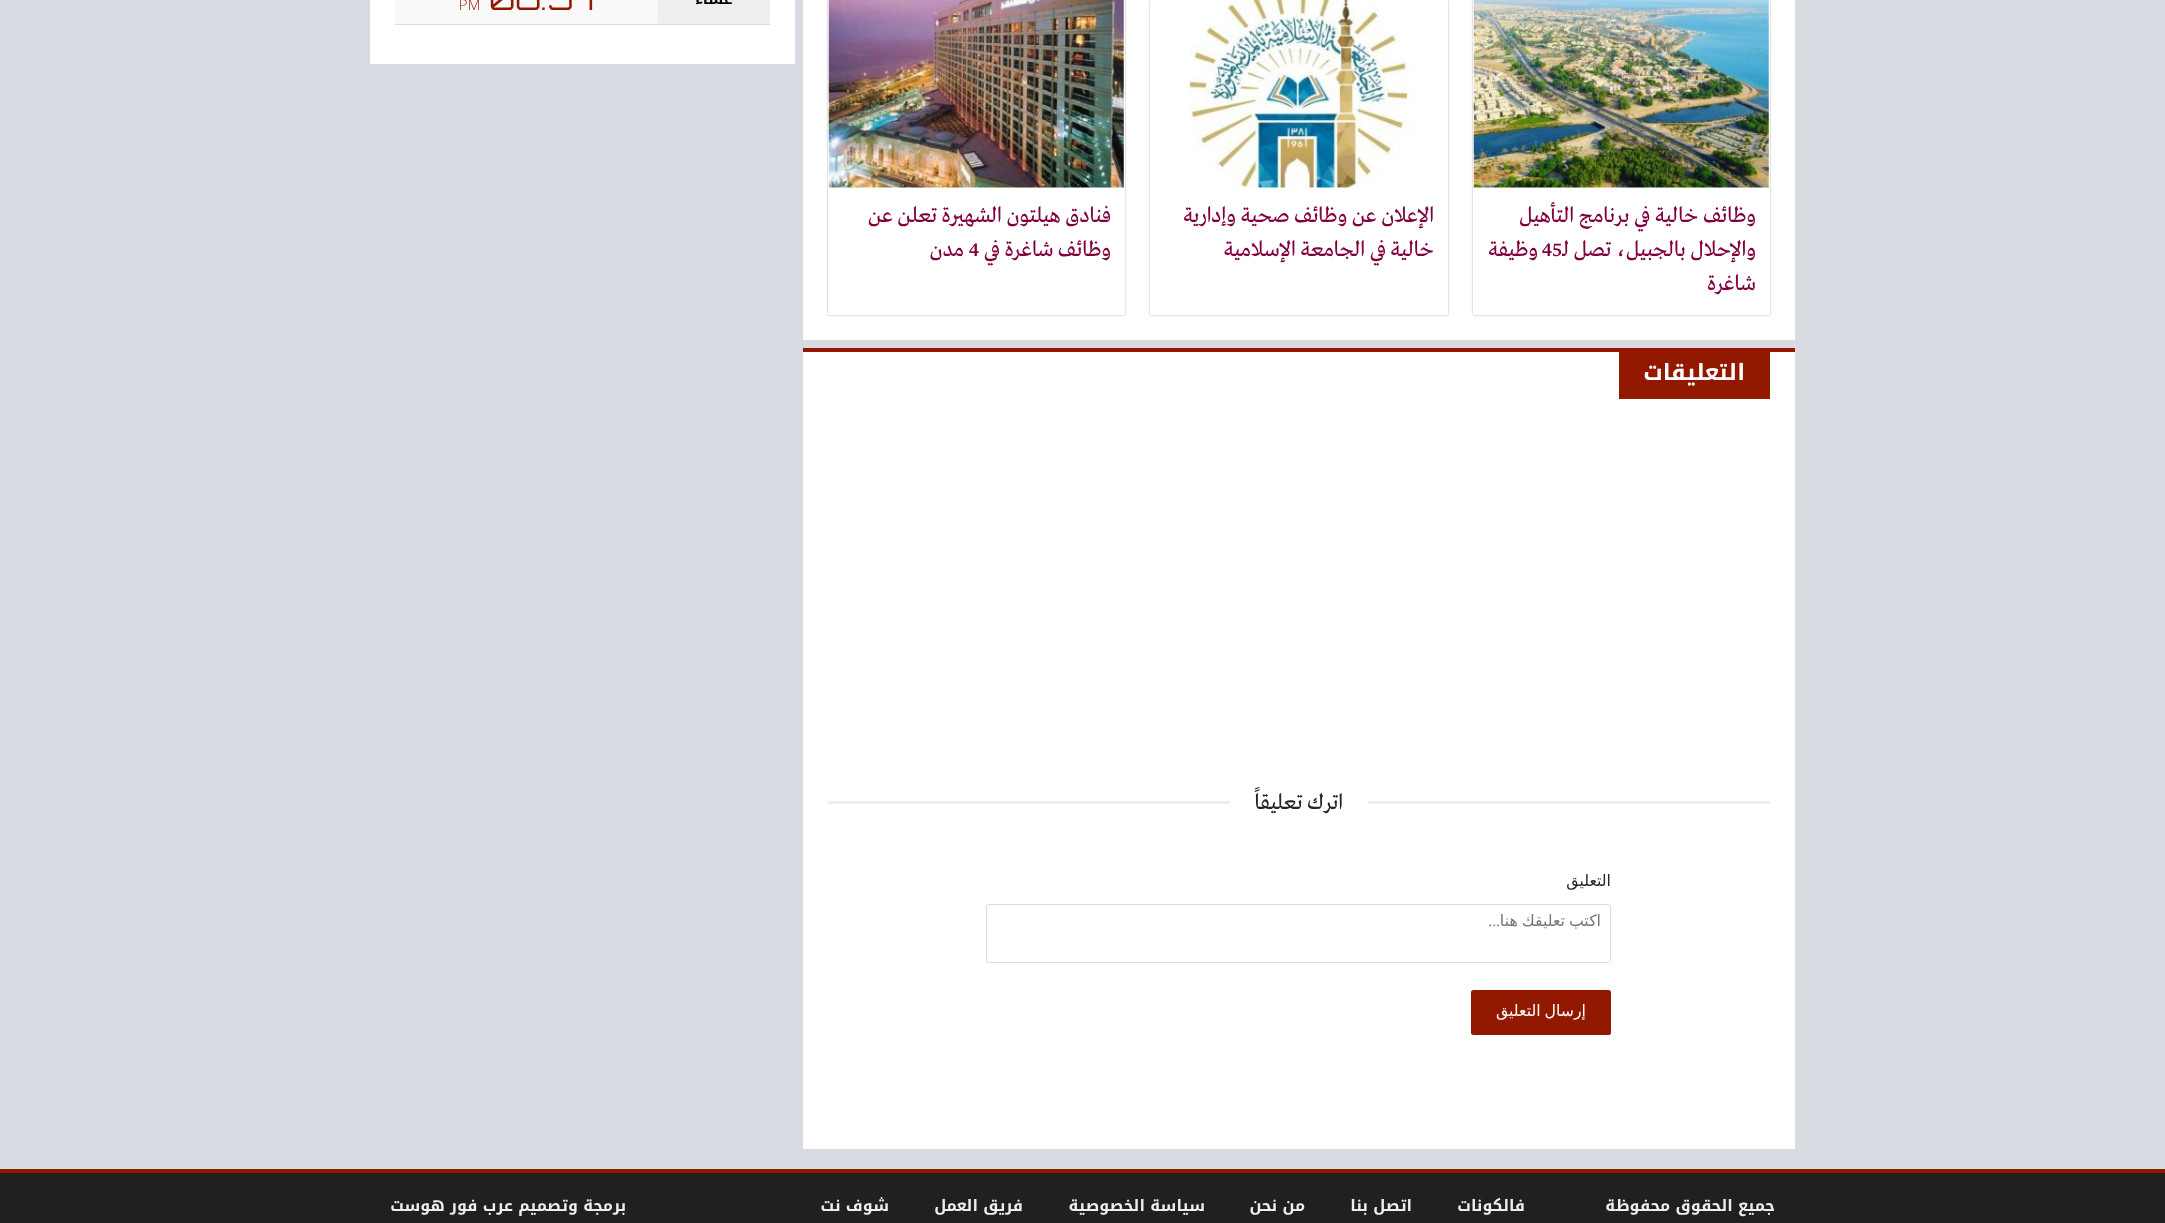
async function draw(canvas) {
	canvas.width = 2165;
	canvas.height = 1223;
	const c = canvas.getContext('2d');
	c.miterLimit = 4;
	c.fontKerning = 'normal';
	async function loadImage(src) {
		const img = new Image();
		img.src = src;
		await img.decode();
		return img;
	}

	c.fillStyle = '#d8dbe1';
	c.fillRect(0, 0, 2165, 1223);
	c.fillStyle = '#fff';
	c.fillRect(370, 0, 425, 64);
	c.drawImage(await loadImage('img1.png'), 395, 0, 375, 25);
	c.fillRect(803, 0, 992, 340);
	c.save();
	c.beginPath();
	c.moveTo(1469, 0);
	c.lineTo(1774, 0);
	c.lineTo(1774, 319);
	c.lineTo(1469, 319);
	c.closePath();
	c.moveTo(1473, -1);
	c.lineTo(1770, -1);
	c.lineTo(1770, 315);
	c.lineTo(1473, 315);
	c.closePath();
	c.clip('evenodd');
	c.fillStyle = '#0000004d';
	c.filter = 'blur(1px)';
	c.beginPath();
	c.rect(1473, -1, 297, 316);
	c.fill();
	c.filter = 'none';
	c.restore();
	c.drawImage(await loadImage('img2.png'), 1473, 0, 296, 188);
	c.direction = 'rtl';
	c.font = '22.5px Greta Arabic';
	c.fillStyle = '#800040';
	c.fillText('وظائف خالية في برنامج التأهيل', 1756, 222);
	c.fillText('والإحلال بالجبيل، تصل لـ', 1756, 256);
	c.direction = 'ltr';
	c.fillText('45', 1542, 256);
	c.direction = 'rtl';
	c.fillText('وظيفة', 1538, 256);
	c.fillText('شاغرة', 1756, 290);
	c.save();
	c.beginPath();
	c.moveTo(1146, 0);
	c.lineTo(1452, 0);
	c.lineTo(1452, 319);
	c.lineTo(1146, 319);
	c.closePath();
	c.moveTo(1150, -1);
	c.lineTo(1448, -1);
	c.lineTo(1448, 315);
	c.lineTo(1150, 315);
	c.closePath();
	c.clip('evenodd');
	c.fillStyle = '#0000004d';
	c.filter = 'blur(1px)';
	c.beginPath();
	c.rect(1150, -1, 298, 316);
	c.fill();
	c.filter = 'none';
	c.restore();
	c.drawImage(await loadImage('img3.png'), 1189, 0, 226, 188);
	c.fillText('الإعلان عن وظائف صحية وإدارية', 1434, 222);
	c.fillText('خالية في الجامعة الإسلامية', 1434, 256);
	c.save();
	c.beginPath();
	c.moveTo(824, 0);
	c.lineTo(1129, 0);
	c.lineTo(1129, 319);
	c.lineTo(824, 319);
	c.closePath();
	c.moveTo(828, -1);
	c.lineTo(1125, -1);
	c.lineTo(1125, 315);
	c.lineTo(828, 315);
	c.closePath();
	c.clip('evenodd');
	c.fillStyle = '#0000004d';
	c.filter = 'blur(1px)';
	c.beginPath();
	c.rect(828, -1, 297, 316);
	c.fill();
	c.filter = 'none';
	c.restore();
	c.drawImage(await loadImage('img4.png'), 828, 0, 296, 188);
	c.fillText('فنادق هيلتون الشهيرة تعلن عن', 1111, 222);
	c.fillText('وظائف شاغرة في', 1111, 256);
	c.direction = 'ltr';
	c.fillText('4', 969, 256);
	c.direction = 'rtl';
	c.fillText('مدن', 964, 256);
	for (const [x, y, w, h, color] of [
		[803, 352, 992, 797, '#fff'],
		[803, 348, 992, 4, '#931800'],
		[1619, 352, 151, 47, '#931800'],
	]) {
		c.fillStyle = color;
		c.fillRect(x, y, w, h);
	}
	c.font = 'bold 22.5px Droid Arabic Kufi';
	c.fillStyle = '#fff';
	c.fillText('التعليقات', 1745, 380);
	c.fillStyle = '#eee';
	c.fillRect(828, 801, 942, 3);
	c.fillStyle = '#fff';
	c.fillRect(1230, 801, 138, 3);
	c.font = '22.5px Greta Arabic';
	c.fillStyle = '#212529';
	c.fillText('اترك تعليقاً', 1343, 809);
	c.font = '15.75px DejaVu Sans';
	c.fillText('التعليق', 1611, 886);
	c.beginPath();
	c.roundRect(986.5, 904.5, 624, 58, 2);
	c.strokeStyle = '#dbdbdb';
	c.stroke();
	c.wordSpacing = '-1px';
	c.fillStyle = '#757575';
	c.fillText('اكتب تعليقك هنا', 1601, 926);
	c.wordSpacing = '0px';
	c.font = '15.75px Liberation Serif';
	c.fillText('...', 1500, 926);
	c.fillStyle = '#931800';
	c.beginPath();
	c.roundRect(1471, 990, 140, 45, 2.5);
	c.fill();
	c.wordSpacing = '-1px';
	c.font = '15.75px DejaVu Sans';
	c.fillStyle = '#fff';
	c.fillText('إرسال التعليق', 1586, 1016);
	c.fillStyle = '#202020';
	c.fillRect(0, 1173, 2165, 50);
	c.fillStyle = '#931800';
	c.fillRect(0, 1169, 2165, 4);
	c.wordSpacing = '0px';
	c.font = 'bold 15.75px Droid Arabic Kufi';
	c.fillStyle = '#eee';
	for (const [text, x, y] of [
		['جميع الحقوق محفوظة', 1775, 1211],
		['فالكونات', 1525, 1211],
		['اتصل بنا', 1412, 1211],
		['من نحن', 1305, 1211],
		['سياسة الخصوصية', 1205, 1211],
		['فريق العمل', 1023, 1211],
		['شوف نت', 889, 1211],
		['برمجة وتصميم عرب فور هوست', 626, 1211],
	]) {
		c.fillText(text, x, y);
	}
}

draw(document.querySelector('canvas'));
